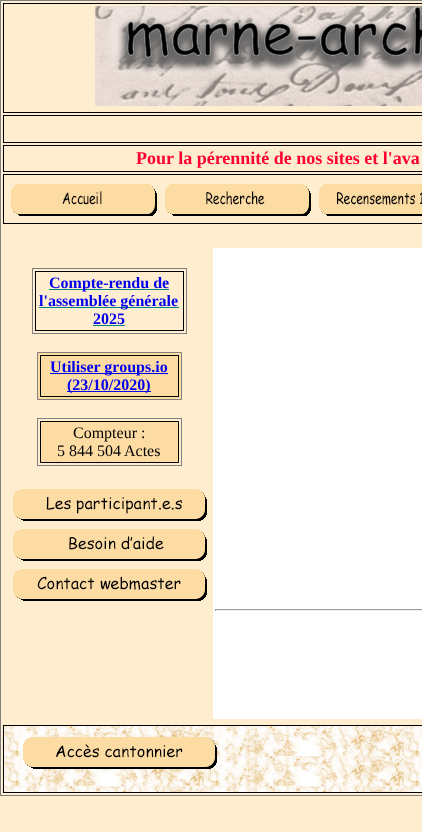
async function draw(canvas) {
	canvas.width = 422;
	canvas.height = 832;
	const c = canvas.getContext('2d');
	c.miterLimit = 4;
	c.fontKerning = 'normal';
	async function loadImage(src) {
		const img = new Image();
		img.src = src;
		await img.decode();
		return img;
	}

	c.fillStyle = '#feedcf';
	c.fillRect(0, 0, 422, 832);
	c.strokeStyle = '#808080';
	c.strokeRect(0.5, 0.5, 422, 795);
	c.strokeStyle = '#000';
	c.strokeRect(3.5, 3.5, 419, 109);
	c.drawImage(await loadImage('img1.png'), 95, 6, 327, 100);
	c.strokeRect(3.5, 115.5, 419, 27);
	c.strokeRect(3.5, 145.5, 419, 26);
	c.font = 'bold 18px Liberation Serif';
	c.fillStyle = '#f03';
	c.fillText('Pour la pérennité de nos sites et l\'ava', 136, 164);
	c.strokeRect(3.5, 174.5, 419, 49);
	c.drawImage(await loadImage('img2.png'), 11, 184, 146, 32);
	c.drawImage(await loadImage('img3.png'), 165, 184, 146, 32);
	c.drawImage(await loadImage('img4.png'), 319, 184, 103, 32);
	c.strokeStyle = '#808080';
	c.strokeRect(32.5, 268.5, 154, 65);
	c.strokeStyle = '#000';
	c.strokeRect(35.5, 271.5, 148, 59);
	c.fillStyle = '#008080';
	c.fillRect(49, 289, 120, 1);
	c.font = 'bold 16px Liberation Serif';
	c.fillStyle = '#00e';
	c.fillText('Compte-rendu de', 49, 288);
	c.fillStyle = '#008080';
	c.fillRect(39, 307, 140, 1);
	c.fillStyle = '#00e';
	c.fillText('l\'assemblée générale', 39, 306);
	c.fillText('2025', 93, 324);
	c.fillStyle = '#008080';
	c.fillRect(93, 325, 32, 1);
	c.fillStyle = '#fddca4';
	c.beginPath();
	c.rect(37.5, 352.5, 144, 47);
	c.fill();
	c.strokeStyle = '#808080';
	c.stroke();
	c.strokeStyle = '#000';
	c.strokeRect(40.5, 355.5, 138, 41);
	c.fillStyle = '#00e';
	c.fillRect(50, 373, 118, 1);
	c.fillText('Utiliser groups.io', 50, 372);
	c.fillRect(67, 391, 84, 1);
	c.fillText('(23/10/2020)', 67, 390);
	c.strokeStyle = '#808080';
	c.strokeRect(37.5, 418.5, 144, 47);
	c.fillStyle = '#fddca4';
	c.beginPath();
	c.rect(40.5, 421.5, 138, 41);
	c.fill();
	c.strokeStyle = '#000';
	c.stroke();
	c.font = '16px Liberation Serif';
	c.fillStyle = '#000';
	for (const [text, x, y] of [
		['Compteur :', 73, 438],
		['5 844 504', 57, 456],
		['Actes', 124, 456],
	]) {
		c.fillText(text, x, y);
	}
	c.drawImage(await loadImage('img5.png'), 13, 489, 194, 32);
	c.drawImage(await loadImage('img6.png'), 13, 529, 194, 32);
	c.drawImage(await loadImage('img7.png'), 13, 569, 194, 32);
	for (const [x, y, w, h, color] of [
		[213, 248, 209, 471, '#fff'],
		[215, 609, 207, 1, '#9f9f9f'],
		[215, 610, 207, 1, '#eee'],
		[215, 609, 1, 2, '#9f9f9f'],
	]) {
		c.fillStyle = color;
		c.fillRect(x, y, w, h);
	}
	c.drawImage(await loadImage('img8.png'), 4, 726, 418, 66);
	c.strokeRect(3.5, 725.5, 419, 67);
	c.drawImage(await loadImage('img9.png'), 23, 737, 194, 32);
}

draw(document.querySelector('canvas'));
